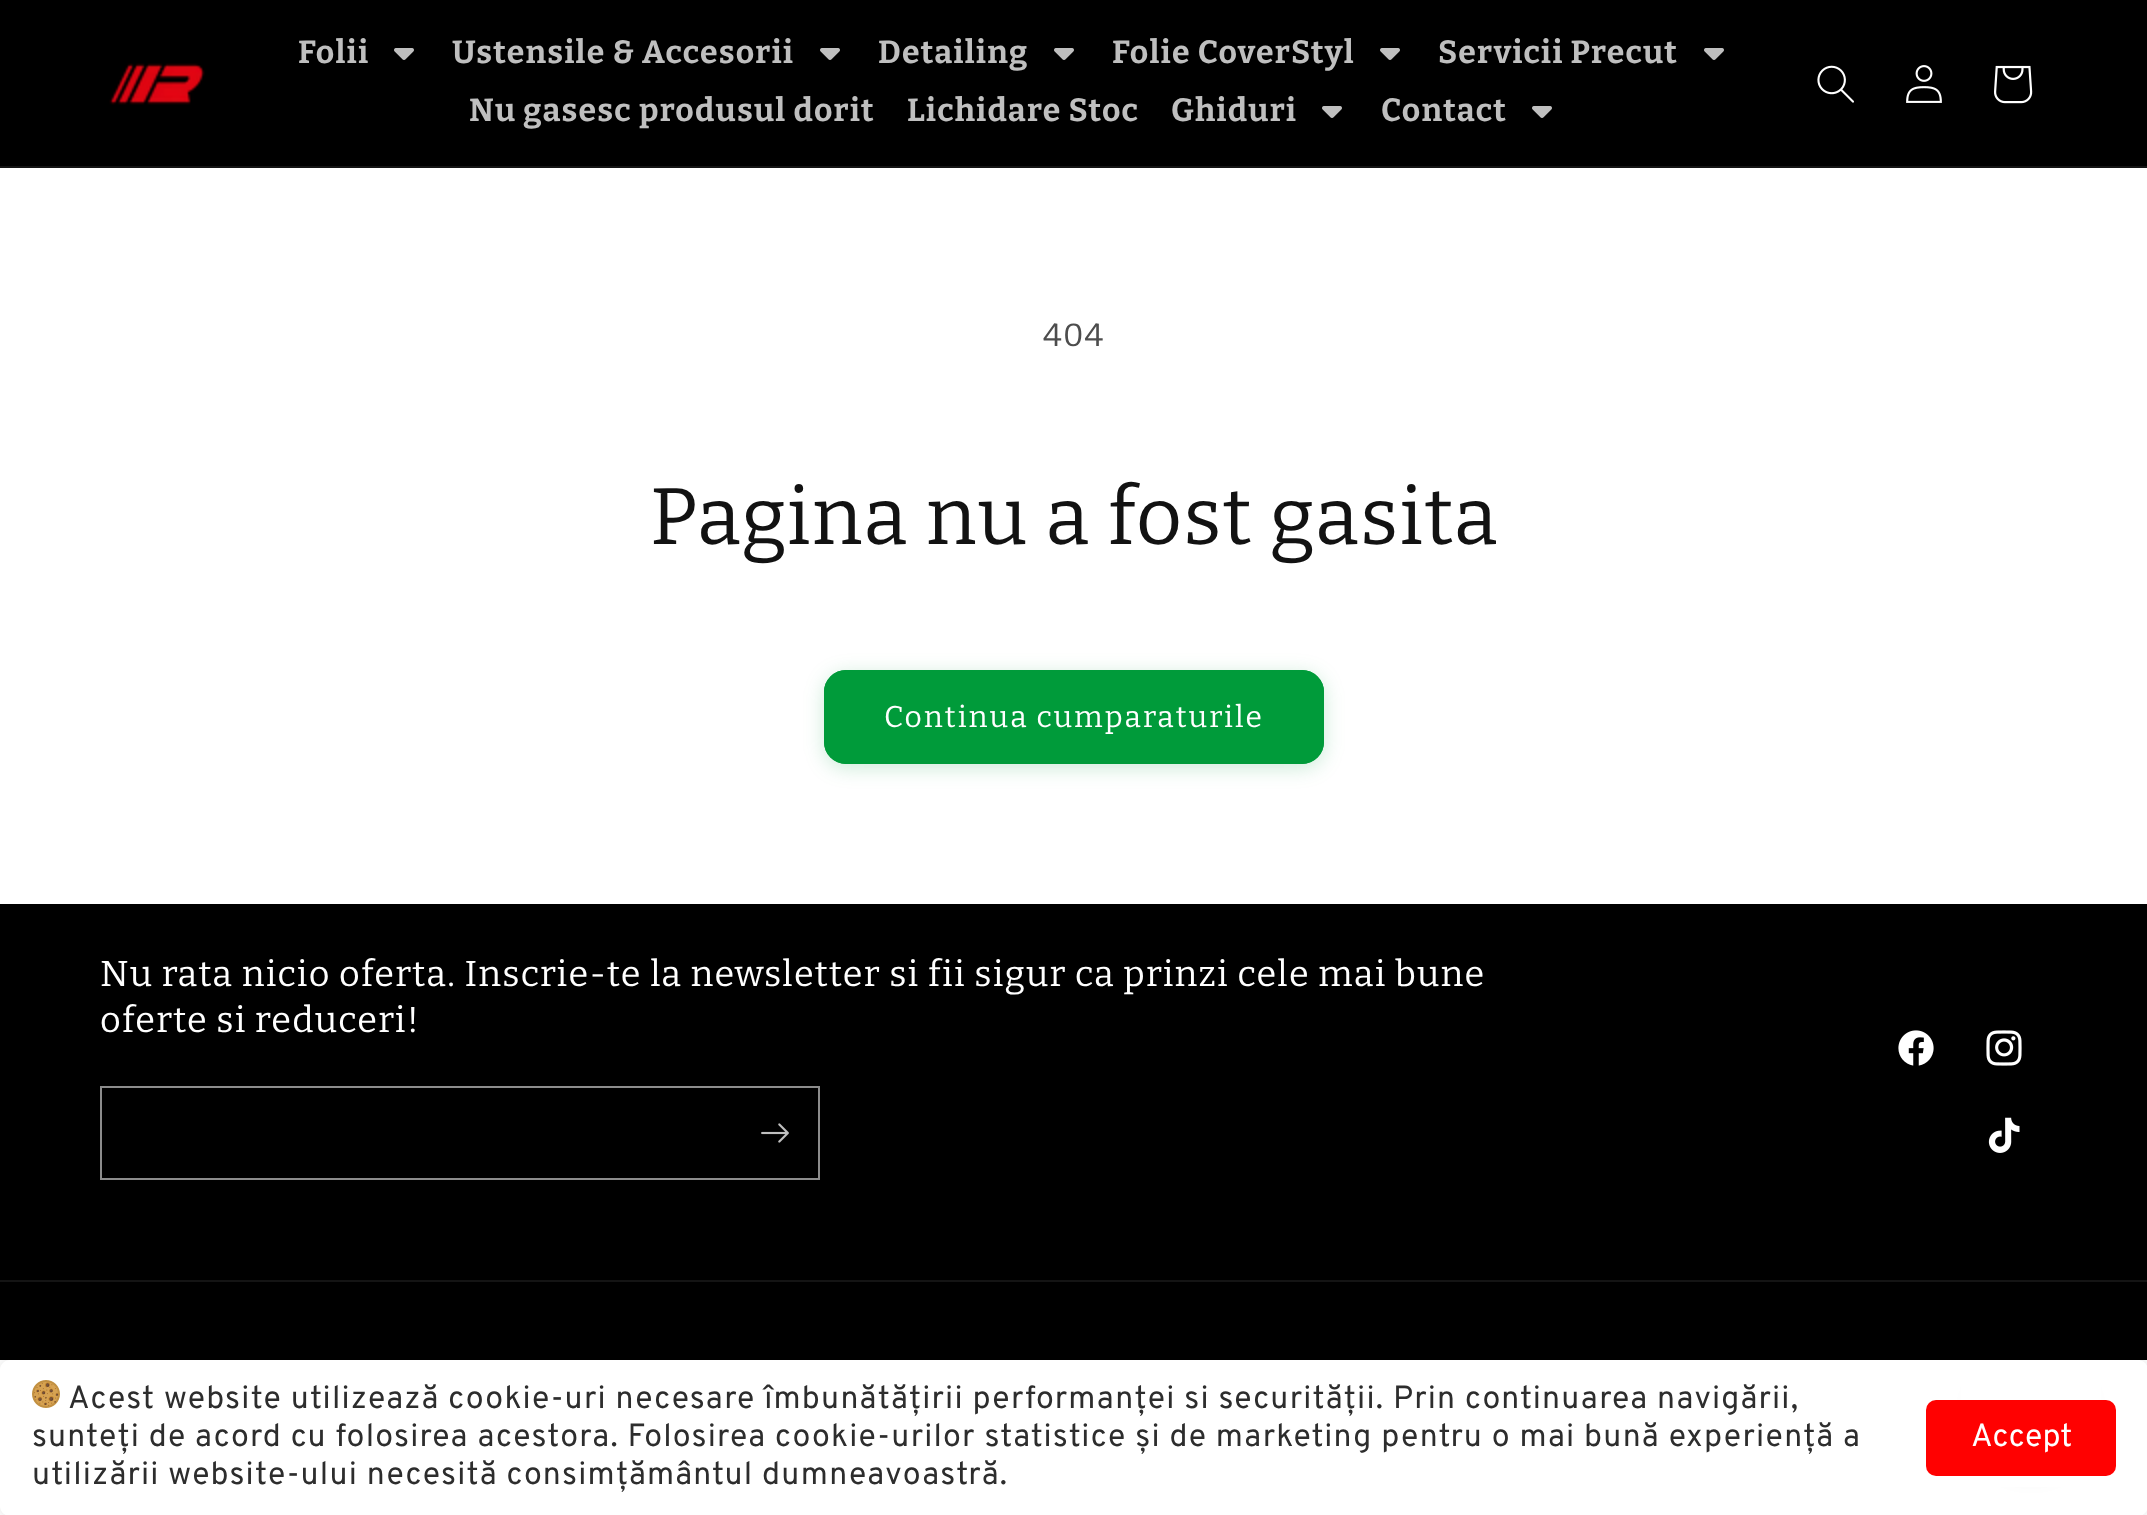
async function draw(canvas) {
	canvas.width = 2147;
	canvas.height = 1515;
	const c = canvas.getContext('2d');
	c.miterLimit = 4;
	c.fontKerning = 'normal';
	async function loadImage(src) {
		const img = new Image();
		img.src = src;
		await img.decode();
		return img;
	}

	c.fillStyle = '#fff';
	c.fillRect(0, 0, 2147, 1515);
	c.fillStyle = '#000';
	c.fillRect(0, 0, 2147, 166);
	c.fillStyle = '#141414';
	c.fillRect(0, 166, 2147, 2);
	c.drawImage(await loadImage('img1.png'), 109, 63, 96, 42);
	c.letterSpacing = '1.2px';
	c.font = 'bold 32px Bitter';
	c.fillStyle = '#bfbfbf';
	c.fillText('Folii', 298, 63);
	c.drawImage(await loadImage('img2.png'), 394, 48, 20, 12);
	c.fillText('Ustensile & Accesorii', 452, 63);
	c.drawImage(await loadImage('img2.png'), 820, 48, 20, 12);
	c.fillText('Detailing', 878, 63);
	c.drawImage(await loadImage('img2.png'), 1054, 48, 20, 12);
	c.fillText('Folie CoverStyl', 1112, 63);
	c.drawImage(await loadImage('img2.png'), 1380, 48, 20, 12);
	c.fillText('Servicii Precut', 1438, 63);
	c.drawImage(await loadImage('img2.png'), 1704, 48, 20, 12);
	for (const [text, x, y] of [
		['Nu gasesc produsul dorit', 469, 121],
		['Lichidare Stoc', 907, 121],
		['Ghiduri', 1171, 121],
	]) {
		c.fillText(text, x, y);
	}
	c.drawImage(await loadImage('img2.png'), 1322, 106, 20, 12);
	c.fillText('Contact', 1381, 121);
	c.drawImage(await loadImage('img2.png'), 1532, 106, 20, 12);
	c.drawImage(await loadImage('img3.png'), 1817, 65, 37, 38);
	c.drawImage(await loadImage('img4.png'), 1906, 65, 36, 38);
	c.drawImage(await loadImage('img5.png'), 1994, 65, 39, 39);
	c.font = '32px Bitter';
	c.fillStyle = '#4d4d4d';
	c.fillText('404', 1043, 346);
	c.font = '80px Bitter';
	c.fillStyle = '#121212';
	c.fillText('Pagina nu a fost gasita', 650, 544);
	c.fillStyle = '#009b3a33';
	c.filter = 'blur(10px)';
	c.beginPath();
	c.roundRect(824, 674, 500, 94, 22);
	c.fill();
	c.filter = 'none';
	c.fillStyle = '#009b3a';
	c.beginPath();
	c.roundRect(824, 670, 500, 94, 22);
	c.fill();
	c.beginPath();
	c.roundRect(825, 671, 498, 92, 21);
	c.strokeStyle = '#009b3a';
	c.lineWidth = 2;
	c.stroke();
	c.letterSpacing = '2px';
	c.font = '30px Bitter';
	c.fillStyle = '#fff';
	c.fillText('Continua cumparaturile', 884, 727);
	c.fillStyle = '#000';
	c.fillRect(0, 904, 2147, 456);
	c.letterSpacing = '1.2px';
	c.font = '36px Bitter';
	c.fillStyle = '#fff';
	c.fillText('Nu rata nicio oferta. Inscrie-te la newsletter si fii sigur ca prinzi cele mai bune', 100, 986);
	c.fillText('oferte si reduceri!', 100, 1032);
	c.strokeStyle = '#8c8c8c';
	c.strokeRect(101, 1087, 718, 92);
	c.drawImage(await loadImage('img6.png'), 761, 1123, 28, 20);
	c.drawImage(await loadImage('img7.png'), 1898, 1030, 36, 36);
	c.drawImage(await loadImage('img8.png'), 1986, 1030, 36, 36);
	c.drawImage(await loadImage('img9.png'), 1988, 1117, 32, 36);
	c.fillStyle = '#141414';
	c.fillRect(0, 1280, 2147, 2);
	c.save();
	c.beginPath();
	c.moveTo(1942, 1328);
	c.lineTo(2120, 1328);
	c.lineTo(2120, 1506);
	c.lineTo(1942, 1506);
	c.closePath();
	c.moveTo(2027, 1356);
	c.bezierCurveTo(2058.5, 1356, 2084, 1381.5, 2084, 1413);
	c.lineTo(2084, 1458);
	c.bezierCurveTo(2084, 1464.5, 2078.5, 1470, 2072, 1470);
	c.lineTo(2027, 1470);
	c.bezierCurveTo(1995.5, 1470, 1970, 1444.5, 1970, 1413);
	c.bezierCurveTo(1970, 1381.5, 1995.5, 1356, 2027, 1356);
	c.closePath();
	c.clip('evenodd');
	c.fillStyle = '#00000012';
	c.filter = 'blur(9px)';
	c.beginPath();
	c.roundRect(1970, 1356, 122, 122, 61);
	c.fill();
	c.filter = 'none';
	c.restore();
	c.fillStyle = '#fff';
	c.fillRect(1961, 1360, 140, 127);
	c.save();
	c.beginPath();
	c.moveTo(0, 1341);
	c.lineTo(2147, 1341);
	c.lineTo(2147, 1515);
	c.lineTo(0, 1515);
	c.closePath();
	c.moveTo(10, 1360);
	c.lineTo(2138, 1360);
	c.bezierCurveTo(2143.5, 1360, 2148, 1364.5, 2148, 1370);
	c.lineTo(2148, 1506);
	c.bezierCurveTo(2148, 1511.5, 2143.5, 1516, 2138, 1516);
	c.lineTo(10, 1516);
	c.bezierCurveTo(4.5, 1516, 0, 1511.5, 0, 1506);
	c.lineTo(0, 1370);
	c.bezierCurveTo(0, 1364.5, 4.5, 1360, 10, 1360);
	c.closePath();
	c.clip('evenodd');
	c.fillStyle = '#0000001f';
	c.filter = 'blur(6px)';
	c.beginPath();
	c.roundRect(0, 1360, 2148, 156, 10);
	c.fill();
	c.filter = 'none';
	c.restore();
	c.drawImage(await loadImage('img10.png'), 32, 1380, 28, 28);
	c.font = '32px Overpass';
	c.fillStyle = '#2d2d2d';
	for (const [text, x, y] of [
		['Acest website utilizează cookie-uri necesare îmbunătățirii performanței si securității. Prin continuarea navigării,', 68, 1408],
		['sunteți de acord cu folosirea acestora. Folosirea cookie-urilor statistice și de marketing pentru o mai bună experiență a', 32, 1446],
		['utilizării website-ului necesită consimțământul dumneavoastră.', 32, 1484],
	]) {
		c.fillText(text, x, y);
	}
	c.fillStyle = '#ff0101';
	c.beginPath();
	c.roundRect(1926, 1400, 190, 76, 10);
	c.fill();
	c.letterSpacing = '0px';
	c.fillStyle = '#fff';
	c.fillText('Accept', 1971, 1446);
}

draw(document.querySelector('canvas'));
